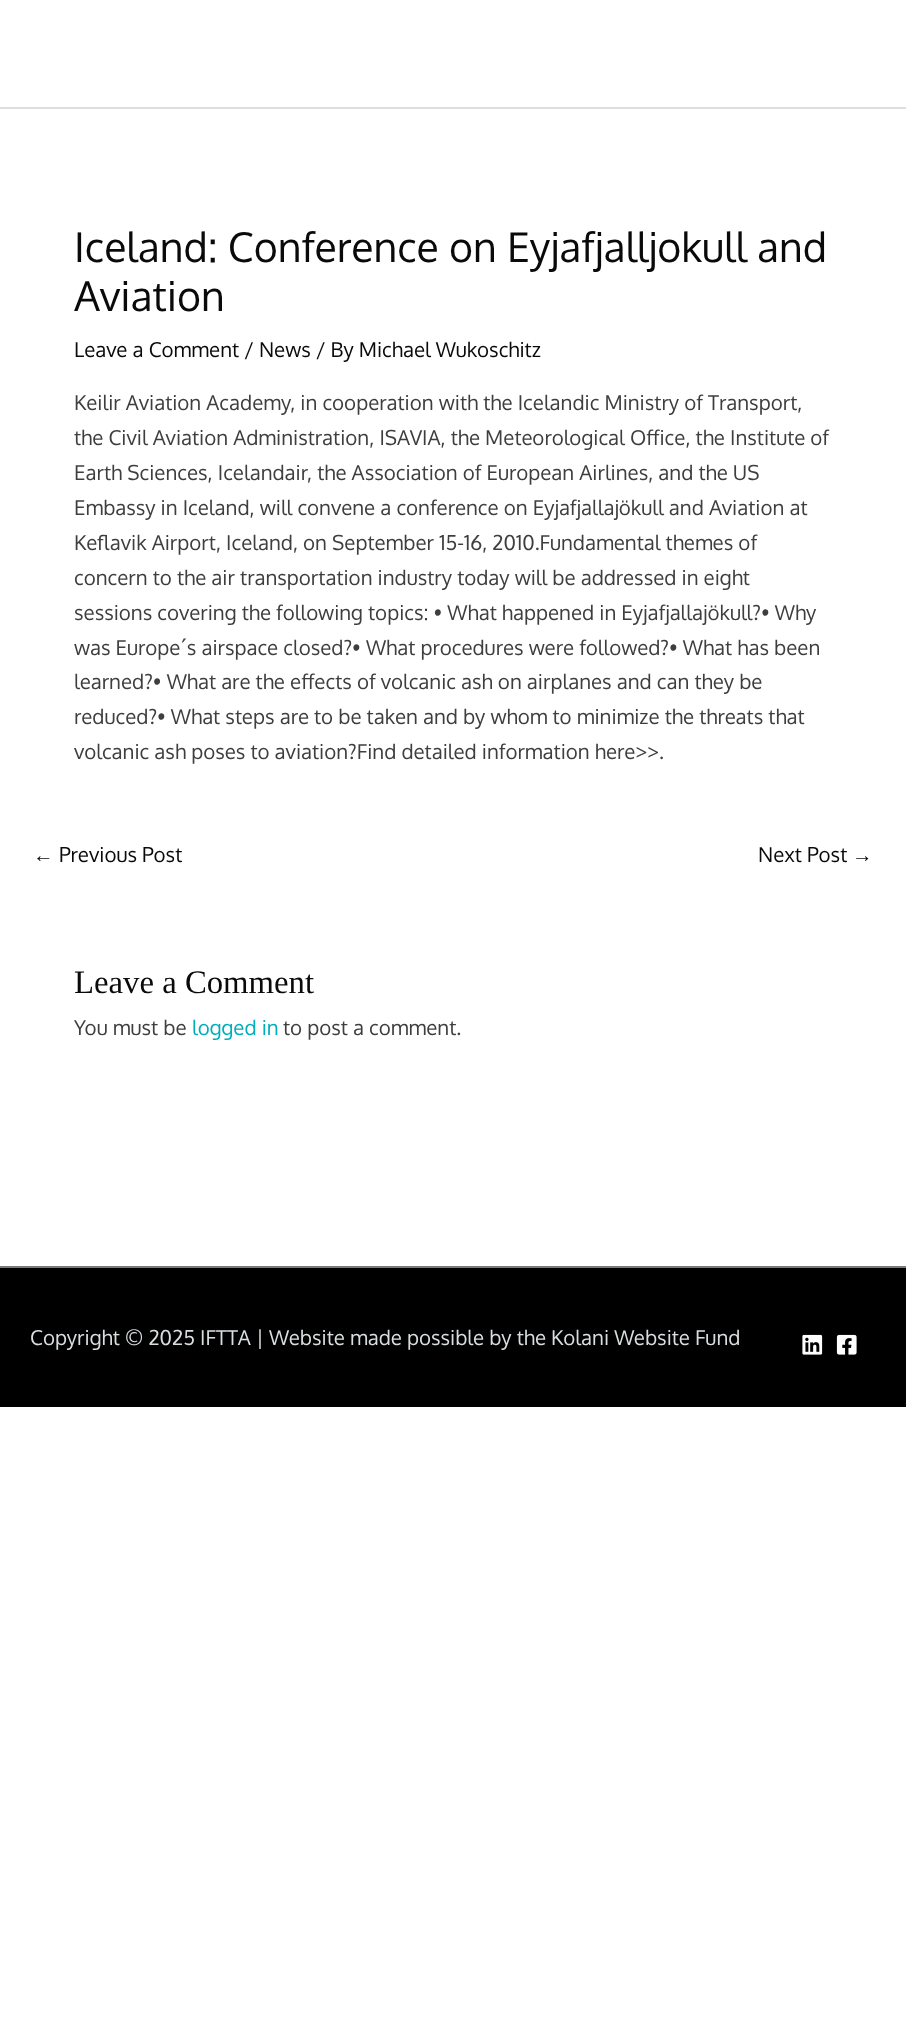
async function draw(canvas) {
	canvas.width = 906;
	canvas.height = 2029;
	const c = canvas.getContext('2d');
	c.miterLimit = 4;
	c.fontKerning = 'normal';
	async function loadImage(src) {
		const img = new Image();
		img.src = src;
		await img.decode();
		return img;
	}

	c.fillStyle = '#fff';
	c.fillRect(0, 0, 906, 2029);
	c.fillStyle = '#ddd';
	c.fillRect(0, 107, 906, 2);
	c.font = '41px Oxygen';
	c.fillStyle = '#0a0a0a';
	c.fillText('Iceland: Conference on Eyjafjalljokull and', 74, 262);
	c.fillText('Aviation', 74, 311);
	c.font = '20.5px Oxygen';
	c.fillText('Leave a Comment / News / By Michael Wukoschitz', 74, 357);
	c.fillStyle = '#3e3e3e';
	for (const [text, x, y] of [
		['Keilir Aviation Academy, in cooperation with the Icelandic Ministry of', 74, 410],
		['Transport,', 708, 410],
		['the Civil Aviation Administration, ISAVIA, the Meteorological', 74, 445],
		['Office, the Institute of', 630, 445],
		['Earth Sciences, Icelandair, the Association of European Airlines, and the US', 74, 480],
		['Embassy in Iceland, will convene a conference on Eyjafjallajökull and Aviation at', 74, 515],
		['Keflavik Airport, Iceland, on September 15-16, 2010.Fundamental themes of', 74, 550],
		['concern to the air transportation industry today will be addressed in eight', 74, 585],
		['sessions covering the following topics: • What happened in Eyjafjallajökull?• Why', 74, 620],
		['was Europe´s airspace closed?• What procedures were followed?• What has been', 74, 655],
		['learned?• What are the effects of volcanic ash on airplanes and can they be', 74, 689],
		['reduced?• What steps are to be taken and by whom to minimize the threats that', 74, 724],
		['volcanic ash poses to aviation?Find detailed information here>>.', 74, 759],
	]) {
		c.fillText(text, x, y);
	}
	c.font = '20.5px Liberation Sans';
	c.fillStyle = '#0a0a0a';
	c.fillText('←', 33, 862);
	c.font = '20.5px Oxygen';
	c.fillText('Previous Post', 59, 862);
	c.fillText('Next Post', 758, 862);
	c.font = '20.5px Liberation Sans';
	c.fillText('→', 852, 862);
	c.font = '32.75px Liberation Serif';
	c.fillText('Leave a Comment', 74, 993);
	c.font = '20.5px Oxygen';
	c.fillStyle = '#3e3e3e';
	c.fillText('You must be', 74, 1035);
	c.fillStyle = '#00adbb';
	c.fillText('logged in', 192, 1035);
	c.fillStyle = '#3e3e3e';
	c.fillText('to post a comment.', 283, 1035);
	c.fillStyle = '#7a7a7a';
	c.fillRect(0, 1266, 906, 2);
	c.fillStyle = '#000';
	c.fillRect(0, 1268, 906, 139);
	c.fillStyle = '#d9dee0';
	c.fillText('Copyright © 2025 IFTTA | Website made possible by the Kolani Website Fund', 30, 1345);
	c.drawImage(await loadImage('img1.png'), 802, 1334, 21, 21);
	c.drawImage(await loadImage('img2.png'), 836, 1334, 21, 21);
}

draw(document.querySelector('canvas'));
